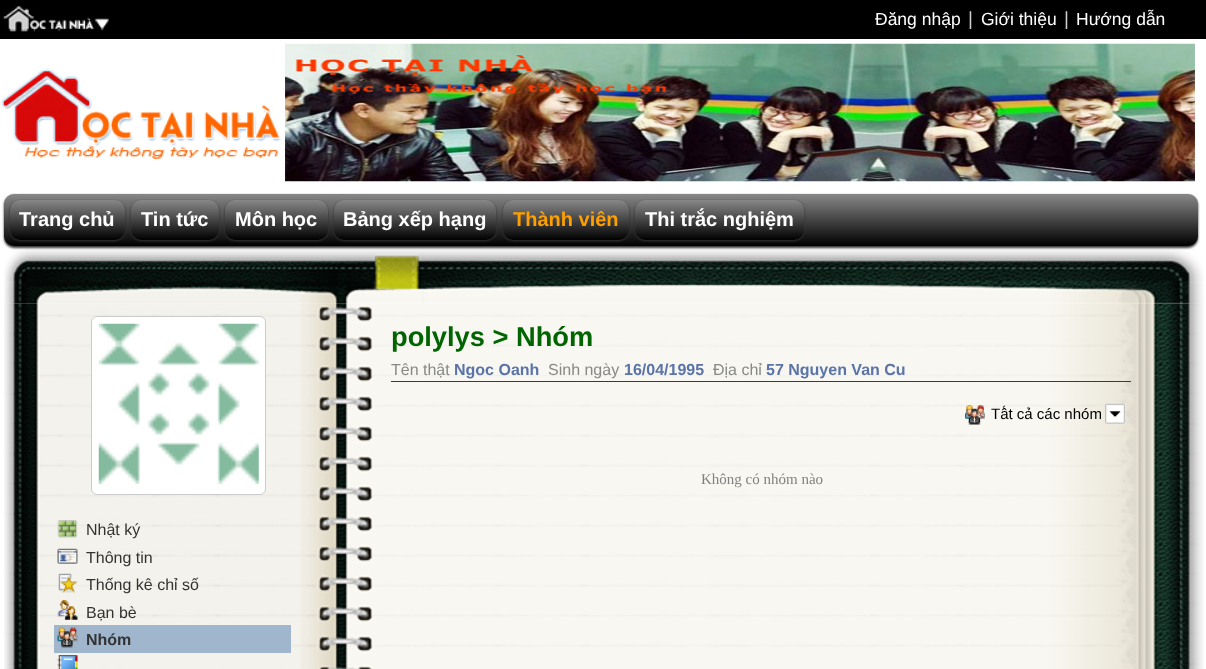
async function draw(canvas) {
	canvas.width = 1206;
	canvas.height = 669;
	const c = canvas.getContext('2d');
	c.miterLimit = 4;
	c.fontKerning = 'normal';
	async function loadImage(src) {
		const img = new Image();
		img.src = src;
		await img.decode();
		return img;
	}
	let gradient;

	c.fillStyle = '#fff';
	c.fillRect(0, 0, 1206, 669);
	c.fillStyle = '#000';
	c.fillRect(0, 0, 1206, 39);
	c.drawImage(await loadImage('img1.png'), 3, 6, 106, 26);
	c.font = '17.5px Liberation Sans';
	c.fillStyle = '#fff';
	c.fillText('Đăng nhập', 875, 25);
	c.font = '19px Liberation Sans';
	c.fillStyle = '#ccc';
	c.fillText('|', 968, 25);
	c.font = '17.5px Liberation Sans';
	c.fillStyle = '#fff';
	c.fillText('Giới thiệu', 981, 25);
	c.font = '19px Liberation Sans';
	c.fillStyle = '#ccc';
	c.fillText('|', 1064, 25);
	c.font = '17.5px Liberation Sans';
	c.fillStyle = '#fff';
	c.fillText('Hướng dẫn', 1076, 25);
	c.drawImage(await loadImage('img2.png'), 1, 68, 280, 91);
	c.drawImage(await loadImage('img3.png'), 285, 43, 910, 139);
	c.drawImage(await loadImage('img4.png'), 4, 248, 1200, 56);
	c.fillStyle = '#333';
	c.filter = 'blur(1px)';
	c.beginPath();
	c.roundRect(4, 195, 1194, 53, 10);
	c.fill();
	c.filter = 'none';
	gradient = c.createLinearGradient(601, 194, 601, 246);
	gradient.addColorStop(0, '#888');
	gradient.addColorStop(1, '#000');
	c.fillStyle = gradient;
	c.beginPath();
	c.roundRect(4, 194, 1194, 52, 10);
	c.fill();
	c.fillStyle = '#333';
	c.filter = 'blur(1px)';
	c.beginPath();
	c.roundRect(10, 201, 115, 40, 10);
	c.fill();
	c.filter = 'none';
	gradient = c.createLinearGradient(68, 200, 68, 240);
	gradient.addColorStop(0, '#888');
	gradient.addColorStop(1, '#000');
	c.fillStyle = gradient;
	c.beginPath();
	c.roundRect(10, 200, 115, 40, 10);
	c.fill();
	c.font = 'bold 20px Liberation Sans';
	c.fillStyle = '#fff';
	c.fillText('Trang chủ', 19, 226);
	c.fillStyle = '#333';
	c.filter = 'blur(1px)';
	c.beginPath();
	c.roundRect(131, 201, 88, 40, 10);
	c.fill();
	c.filter = 'none';
	gradient = c.createLinearGradient(175, 200, 175, 240);
	gradient.addColorStop(0, '#888');
	gradient.addColorStop(1, '#000');
	c.fillStyle = gradient;
	c.beginPath();
	c.roundRect(131, 200, 88, 40, 10);
	c.fill();
	c.fillStyle = '#fff';
	c.fillText('Tin tức', 141, 226);
	c.fillStyle = '#333';
	c.filter = 'blur(1px)';
	c.beginPath();
	c.roundRect(225, 201, 103, 40, 10);
	c.fill();
	c.filter = 'none';
	gradient = c.createLinearGradient(276, 200, 276, 240);
	gradient.addColorStop(0, '#888');
	gradient.addColorStop(1, '#000');
	c.fillStyle = gradient;
	c.beginPath();
	c.roundRect(225, 200, 103, 40, 10);
	c.fill();
	c.fillStyle = '#fff';
	c.fillText('Môn học', 235, 226);
	c.fillStyle = '#333';
	c.filter = 'blur(1px)';
	c.beginPath();
	c.roundRect(334, 201, 162, 40, 10);
	c.fill();
	c.filter = 'none';
	gradient = c.createLinearGradient(415, 200, 415, 240);
	gradient.addColorStop(0, '#888');
	gradient.addColorStop(1, '#000');
	c.fillStyle = gradient;
	c.beginPath();
	c.roundRect(334, 200, 162, 40, 10);
	c.fill();
	c.fillStyle = '#fff';
	c.fillText('Bảng xếp hạng', 343, 226);
	c.fillStyle = '#333';
	c.filter = 'blur(1px)';
	c.beginPath();
	c.roundRect(503, 201, 126, 40, 10);
	c.fill();
	c.filter = 'none';
	gradient = c.createLinearGradient(566, 200, 566, 240);
	gradient.addColorStop(0, '#888');
	gradient.addColorStop(1, '#000');
	c.fillStyle = gradient;
	c.beginPath();
	c.roundRect(503, 200, 126, 40, 10);
	c.fill();
	c.fillStyle = '#ff9f00';
	c.fillText('Thành viên', 513, 226);
	c.fillStyle = '#333';
	c.filter = 'blur(1px)';
	c.beginPath();
	c.roundRect(635, 201, 169, 40, 10);
	c.fill();
	c.filter = 'none';
	gradient = c.createLinearGradient(719, 200, 719, 240);
	gradient.addColorStop(0, '#888');
	gradient.addColorStop(1, '#000');
	c.fillStyle = gradient;
	c.beginPath();
	c.roundRect(635, 200, 169, 40, 10);
	c.fill();
	c.fillStyle = '#fff';
	c.fillText('Thi trắc nghiệm', 645, 226);
	c.drawImage(await loadImage('img5.png'), 4, 303, 1200, 366);
	c.fillStyle = '#006400';
	c.fillRect(391, 381, 740, 1);
	c.font = 'bold 27.25px Liberation Sans';
	c.fillText('polylys > Nhóm', 391, 346);
	c.font = '16px Liberation Sans';
	c.fillStyle = '#888';
	c.fillText('Tên thật', 391, 375);
	c.font = 'bold 16px Liberation Sans';
	c.fillStyle = '#5b74a8';
	c.fillText('Ngoc Oanh', 454, 375);
	c.font = '16px Liberation Sans';
	c.fillStyle = '#888';
	c.fillText('Sinh ngày', 548, 375);
	c.font = 'bold 16px Liberation Sans';
	c.fillStyle = '#5b74a8';
	c.fillText('16/04/1995', 624, 375);
	c.font = '16px Liberation Sans';
	c.fillStyle = '#888';
	c.fillText('Địa chỉ', 713, 375);
	c.font = 'bold 16px Liberation Sans';
	c.fillStyle = '#5b74a8';
	c.fillText('57 Nguyen Van Cu', 766, 375);
	c.drawImage(await loadImage('img6.png'), 965, 405, 20, 20);
	c.font = '15px Liberation Sans';
	c.fillStyle = '#000';
	c.fillText('Tất cả các nhóm', 991, 419);
	c.drawImage(await loadImage('img7.png'), 1105, 403, 20, 21);
	c.font = '15px Liberation Serif';
	c.fillStyle = '#808080';
	c.fillText('Không có nhóm nào', 701, 484);
	c.fillStyle = '#fff';
	c.beginPath();
	c.roundRect(91.5, 316.5, 174, 178, 5.5);
	c.fill();
	c.strokeStyle = '#ccc';
	c.stroke();
	c.drawImage(await loadImage('img8.png'), 98, 323, 161, 161);
	c.drawImage(await loadImage('img9.png'), 57, 520, 21, 18);
	c.font = '16px Liberation Sans';
	c.fillStyle = '#333';
	c.fillText('Nhật ký', 86, 535);
	c.drawImage(await loadImage('img10.png'), 57, 548, 21, 17);
	c.fillText('Thông tin', 86, 563);
	c.drawImage(await loadImage('img11.png'), 58, 573, 20, 20);
	c.fillText('Thống kê chỉ số', 86, 590);
	c.drawImage(await loadImage('img12.png'), 57, 600, 21, 20);
	c.fillText('Bạn bè', 86, 618);
	c.fillStyle = '#9fb6cd';
	c.fillRect(54, 625, 237, 28);
	c.drawImage(await loadImage('img13.png'), 57, 627, 21, 21);
	c.font = 'bold 16px Liberation Sans';
	c.fillStyle = '#333';
	c.fillText('Nhóm', 86, 645);
	c.drawImage(await loadImage('img14.png'), 57, 655, 21, 14);
}

draw(document.querySelector('canvas'));
